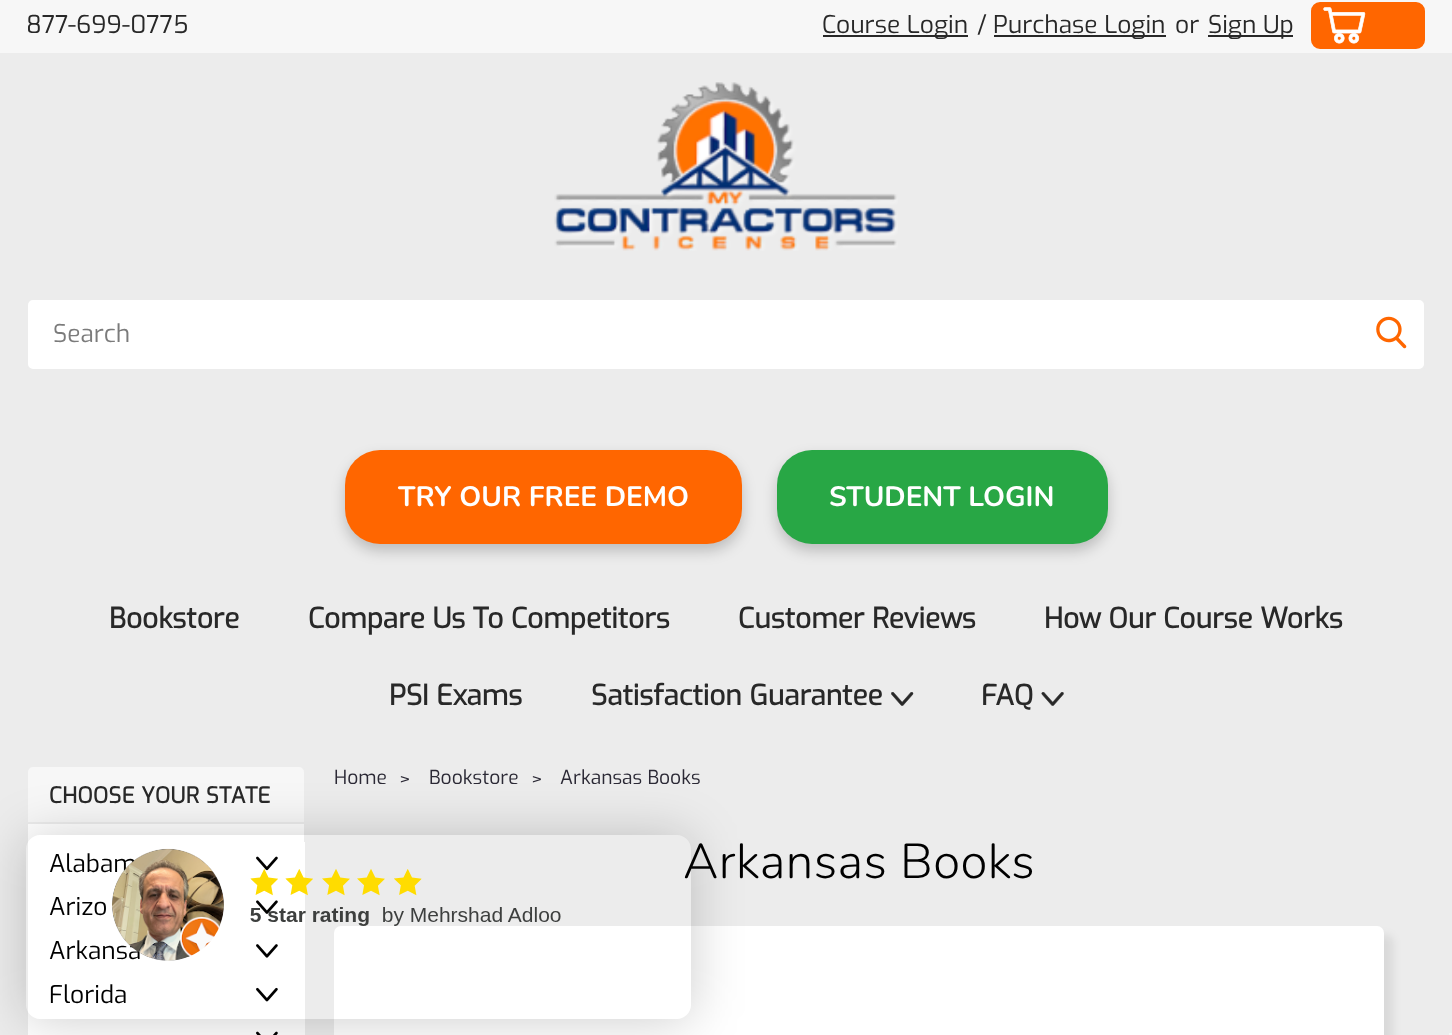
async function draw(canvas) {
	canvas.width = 1452;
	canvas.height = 1035;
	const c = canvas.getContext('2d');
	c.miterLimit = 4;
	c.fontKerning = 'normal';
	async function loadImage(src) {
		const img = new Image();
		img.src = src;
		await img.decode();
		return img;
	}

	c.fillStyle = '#ececec';
	c.fillRect(0, 0, 1452, 1035);
	c.fillStyle = '#f7f7f7';
	c.fillRect(0, 0, 1452, 53);
	c.font = '24.5px Exo';
	c.fillStyle = '#282828';
	c.fillText('877-699-0775', 26, 33);
	c.fillRect(823, 35, 145, 2);
	c.fillText('Course Login', 822, 33);
	c.fillText('/', 977, 33);
	c.fillRect(994, 35, 172, 2);
	c.fillText('Purchase Login', 993, 33);
	c.fillText('or', 1175, 33);
	c.fillRect(1208, 35, 85, 2);
	c.fillText('Sign Up', 1208, 33);
	c.fillStyle = '#f60';
	c.beginPath();
	c.roundRect(1312, 3, 112, 45, 8);
	c.fill();
	c.strokeStyle = '#f60';
	c.lineWidth = 2;
	c.stroke();
	c.drawImage(await loadImage('img1.png'), 1323, 7, 43, 37);
	c.drawImage(await loadImage('img2.png'), 554, 82, 344, 169);
	c.fillStyle = '#fff';
	c.beginPath();
	c.roundRect(27, 299, 1398, 71, 6);
	c.fill();
	c.strokeStyle = '#ececec';
	c.stroke();
	c.fillStyle = '#7b7b7b';
	c.fillText('Search', 53, 342);
	c.drawImage(await loadImage('img3.png'), 1376, 316, 31, 33);
	c.fillStyle = '#00000033';
	c.filter = 'blur(7px)';
	c.beginPath();
	c.roundRect(345, 457, 397, 94, 35);
	c.fill();
	c.filter = 'none';
	c.fillStyle = '#f60';
	c.beginPath();
	c.roundRect(345, 450, 397, 94, 35);
	c.fill();
	c.font = 'bold 28px Nunito';
	c.fillStyle = '#fff';
	c.fillText('TRY OUR FREE DEMO', 398, 506);
	c.fillStyle = '#00000033';
	c.filter = 'blur(7px)';
	c.beginPath();
	c.roundRect(777, 457, 331, 94, 35);
	c.fill();
	c.filter = 'none';
	c.fillStyle = '#28a745';
	c.beginPath();
	c.roundRect(777, 450, 331, 94, 35);
	c.fill();
	c.fillStyle = '#fff';
	c.fillText('STUDENT LOGIN', 829, 506);
	c.font = 'bold 28px Exo';
	c.fillStyle = '#282828';
	for (const [text, x, y] of [
		['Bookstore', 109, 628],
		['Compare Us To Competitors', 308, 628],
		['Customer Reviews', 738, 628],
		['How Our Course Works', 1044, 628],
		['PSI Exams', 389, 705],
		['Satisfaction Guarantee', 591, 705],
	]) {
		c.fillText(text, x, y);
	}
	c.drawImage(await loadImage('img4.png'), 891, 692, 23, 14);
	c.fillText('FAQ', 981, 705);
	c.drawImage(await loadImage('img5.png'), 1041, 692, 23, 14);
	c.fillStyle = '#f7f7f7';
	c.beginPath();
	c.roundRect(27, 766, 278, 57, [6, 6, 0, 0]);
	c.fill();
	c.stroke();
	c.fillStyle = '#fff';
	c.fillRect(28, 824, 276, 18);
	c.fillRect(28, 842, 277, 193);
	c.drawImage(await loadImage('img7.png'), 256, 856, 22, 15);
	c.drawImage(await loadImage('img8.png'), 256, 900, 22, 14);
	c.drawImage(await loadImage('img9.png'), 256, 944, 22, 14);
	c.drawImage(await loadImage('img10.png'), 256, 987, 22, 15);
	c.drawImage(await loadImage('img11.png'), 256, 1031, 22, 4);
	c.fillStyle = '#00000014';
	c.filter = 'blur(4.5px)';
	c.beginPath();
	c.roundRect(343, 935, 1050, 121, 7);
	c.fill();
	c.filter = 'none';
	c.fillStyle = '#fff';
	c.beginPath();
	c.roundRect(334, 926, 1050, 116, 7);
	c.fill();
	c.save();
	c.beginPath();
	c.moveTo(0, 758);
	c.lineTo(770, 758);
	c.lineTo(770, 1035);
	c.lineTo(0, 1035);
	c.closePath();
	c.moveTo(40, 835);
	c.lineTo(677, 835);
	c.bezierCurveTo(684.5, 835, 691, 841.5, 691, 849);
	c.lineTo(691, 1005);
	c.bezierCurveTo(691, 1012.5, 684.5, 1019, 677, 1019);
	c.lineTo(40, 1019);
	c.bezierCurveTo(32.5, 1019, 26, 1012.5, 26, 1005);
	c.lineTo(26, 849);
	c.bezierCurveTo(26, 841.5, 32.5, 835, 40, 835);
	c.closePath();
	c.clip('evenodd');
	c.fillStyle = '#00000033';
	c.filter = 'blur(26px)';
	c.beginPath();
	c.roundRect(26, 837, 665, 183, 14);
	c.fill();
	c.filter = 'none';
	c.restore();
	c.font = '24.5px Exo';
	c.fillStyle = '#000';
	c.fillText('Alabam', 49, 872);
	c.fillText('Arkansa', 49, 959);
	c.drawImage(await loadImage('img6.png'), 112, 848, 449, 113);
	c.letterSpacing = '0.4px';
	c.font = 'bold 22px Exo';
	c.fillStyle = '#282828';
	c.fillText('CHOOSE YOUR STATE', 49, 803);
	c.letterSpacing = '0px';
	c.font = '24.5px Exo';
	c.fillStyle = '#000';
	c.fillText('Arizo', 49, 915);
	c.fillText('Florida', 49, 1003);
	c.font = '19.25px Exo';
	c.fillStyle = '#2b2935';
	for (const [text, x, y] of [
		['Home', 334, 784],
		['>', 399, 786],
		['Bookstore', 429, 784],
		['>', 531, 786],
		['Arkansas Books', 560, 784],
	]) {
		c.fillText(text, x, y);
	}
	c.letterSpacing = '0.4px';
	c.font = '300 49px Nunito';
	c.fillStyle = '#000';
	c.fillText('Arkansas Books', 683, 878);
	c.fillStyle = '#f5f5f5';
	c.fillRect(1449, 1033, 3, 2);
}

draw(document.querySelector('canvas'));
